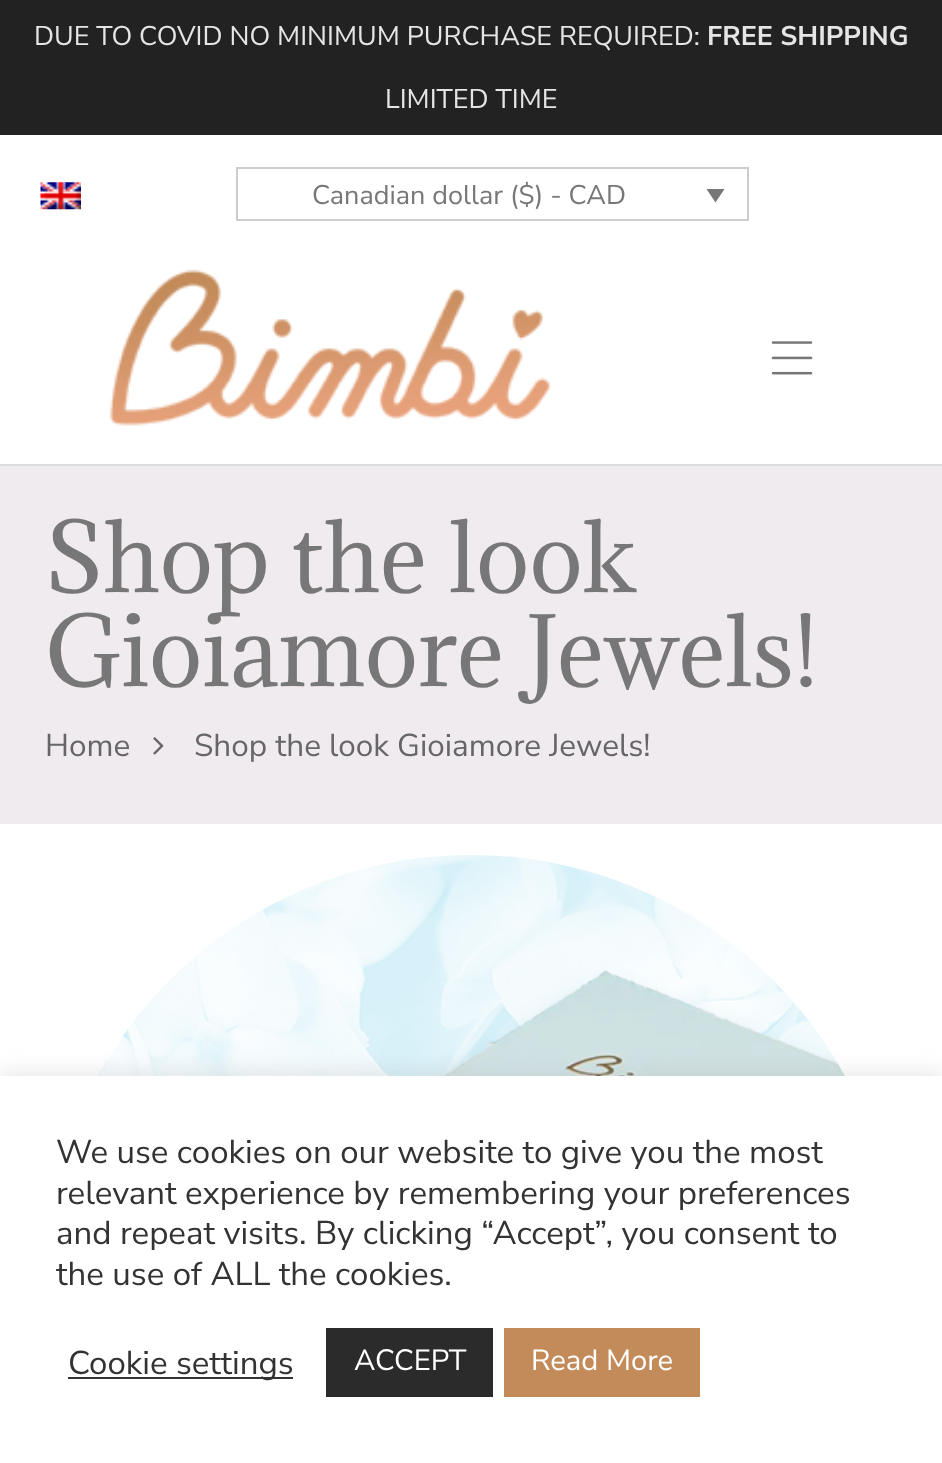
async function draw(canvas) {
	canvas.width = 942;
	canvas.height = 1463;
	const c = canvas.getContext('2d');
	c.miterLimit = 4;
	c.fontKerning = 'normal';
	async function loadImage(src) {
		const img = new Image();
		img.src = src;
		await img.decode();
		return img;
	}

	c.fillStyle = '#fff';
	c.fillRect(0, 0, 942, 1463);
	c.fillStyle = '#222';
	c.fillRect(0, 0, 942, 135);
	c.font = '200 27px Nunito Sans';
	c.fillStyle = '#e5e5e5';
	c.fillText('DUE TO COVID NO MINIMUM PURCHASE REQUIRED:', 34, 45);
	c.font = '200 27px "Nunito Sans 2"';
	c.fillText('FREE SHIPPING', 707, 45);
	c.font = '200 27px Nunito Sans';
	c.fillText('LIMITED TIME', 385, 108);
	c.fillStyle = '#ddd';
	c.fillRect(0, 464, 942, 2);
	c.drawImage(await loadImage('img1.png'), 40, 182, 41, 28);
	c.strokeStyle = '#cdcdcd';
	c.lineWidth = 2;
	c.strokeRect(237, 168, 511, 52);
	c.fillStyle = '#777';
	c.fillText('Canadian dollar ($) - CAD', 312, 204);
	c.beginPath();
	c.moveTo(706.5, 189);
	c.lineTo(724.5, 189);
	c.lineTo(715.5, 202.5);
	c.closePath();
	c.fill();
	c.drawImage(await loadImage('img2.png'), 109, 269, 443, 157);
	c.drawImage(await loadImage('img3.png'), 771, 341, 42, 34);
	c.fillStyle = '#f0ebef';
	c.fillRect(0, 466, 942, 358);
	c.font = '90px Adamina';
	c.fillStyle = '#777';
	c.fillText('Shop the look', 45, 592);
	c.fillText('Gioiamore Jewels!', 45, 686);
	c.font = '200 31.5px Nunito Sans';
	c.fillStyle = '#666';
	c.fillText('Home', 45, 756);
	c.drawImage(await loadImage('img4.png'), 153, 737, 11, 18);
	c.fillText('Shop the look Gioiamore Jewels!', 194, 756);
	c.drawImage(await loadImage('img5.png'), 98, 855, 747, 221);
	c.fillStyle = '#acabab4d';
	c.filter = 'blur(11px)';
	c.beginPath();
	c.rect(0, 1073, 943, 390);
	c.fill();
	c.filter = 'none';
	c.fillStyle = '#fff';
	c.fillRect(0, 1076, 942, 387);
	c.font = '200 33px Nunito Sans';
	c.fillStyle = '#333';
	for (const [text, x, y] of [
		['We use cookies on our website to give you the most', 56, 1163],
		['relevant experience by remembering your preferences', 56, 1204],
		['and repeat visits. By clicking “Accept”, you consent to', 56, 1244],
		['the use of ALL the cookies.', 56, 1285],
	]) {
		c.fillText(text, x, y);
	}
	c.fillRect(68, 1377, 225, 2);
	c.fillText('Cookie settings', 68, 1374);
	c.fillStyle = '#2b2b2b';
	c.fillRect(326, 1328, 167, 69);
	c.font = '200 29.25px Nunito Sans';
	c.fillStyle = '#fff';
	c.fillText('ACCEPT', 354, 1370);
	c.fillStyle = '#c38b5a';
	c.fillRect(504, 1328, 196, 69);
	c.fillStyle = '#fff';
	c.fillText('Read More', 531, 1370);
}

draw(document.querySelector('canvas'));
